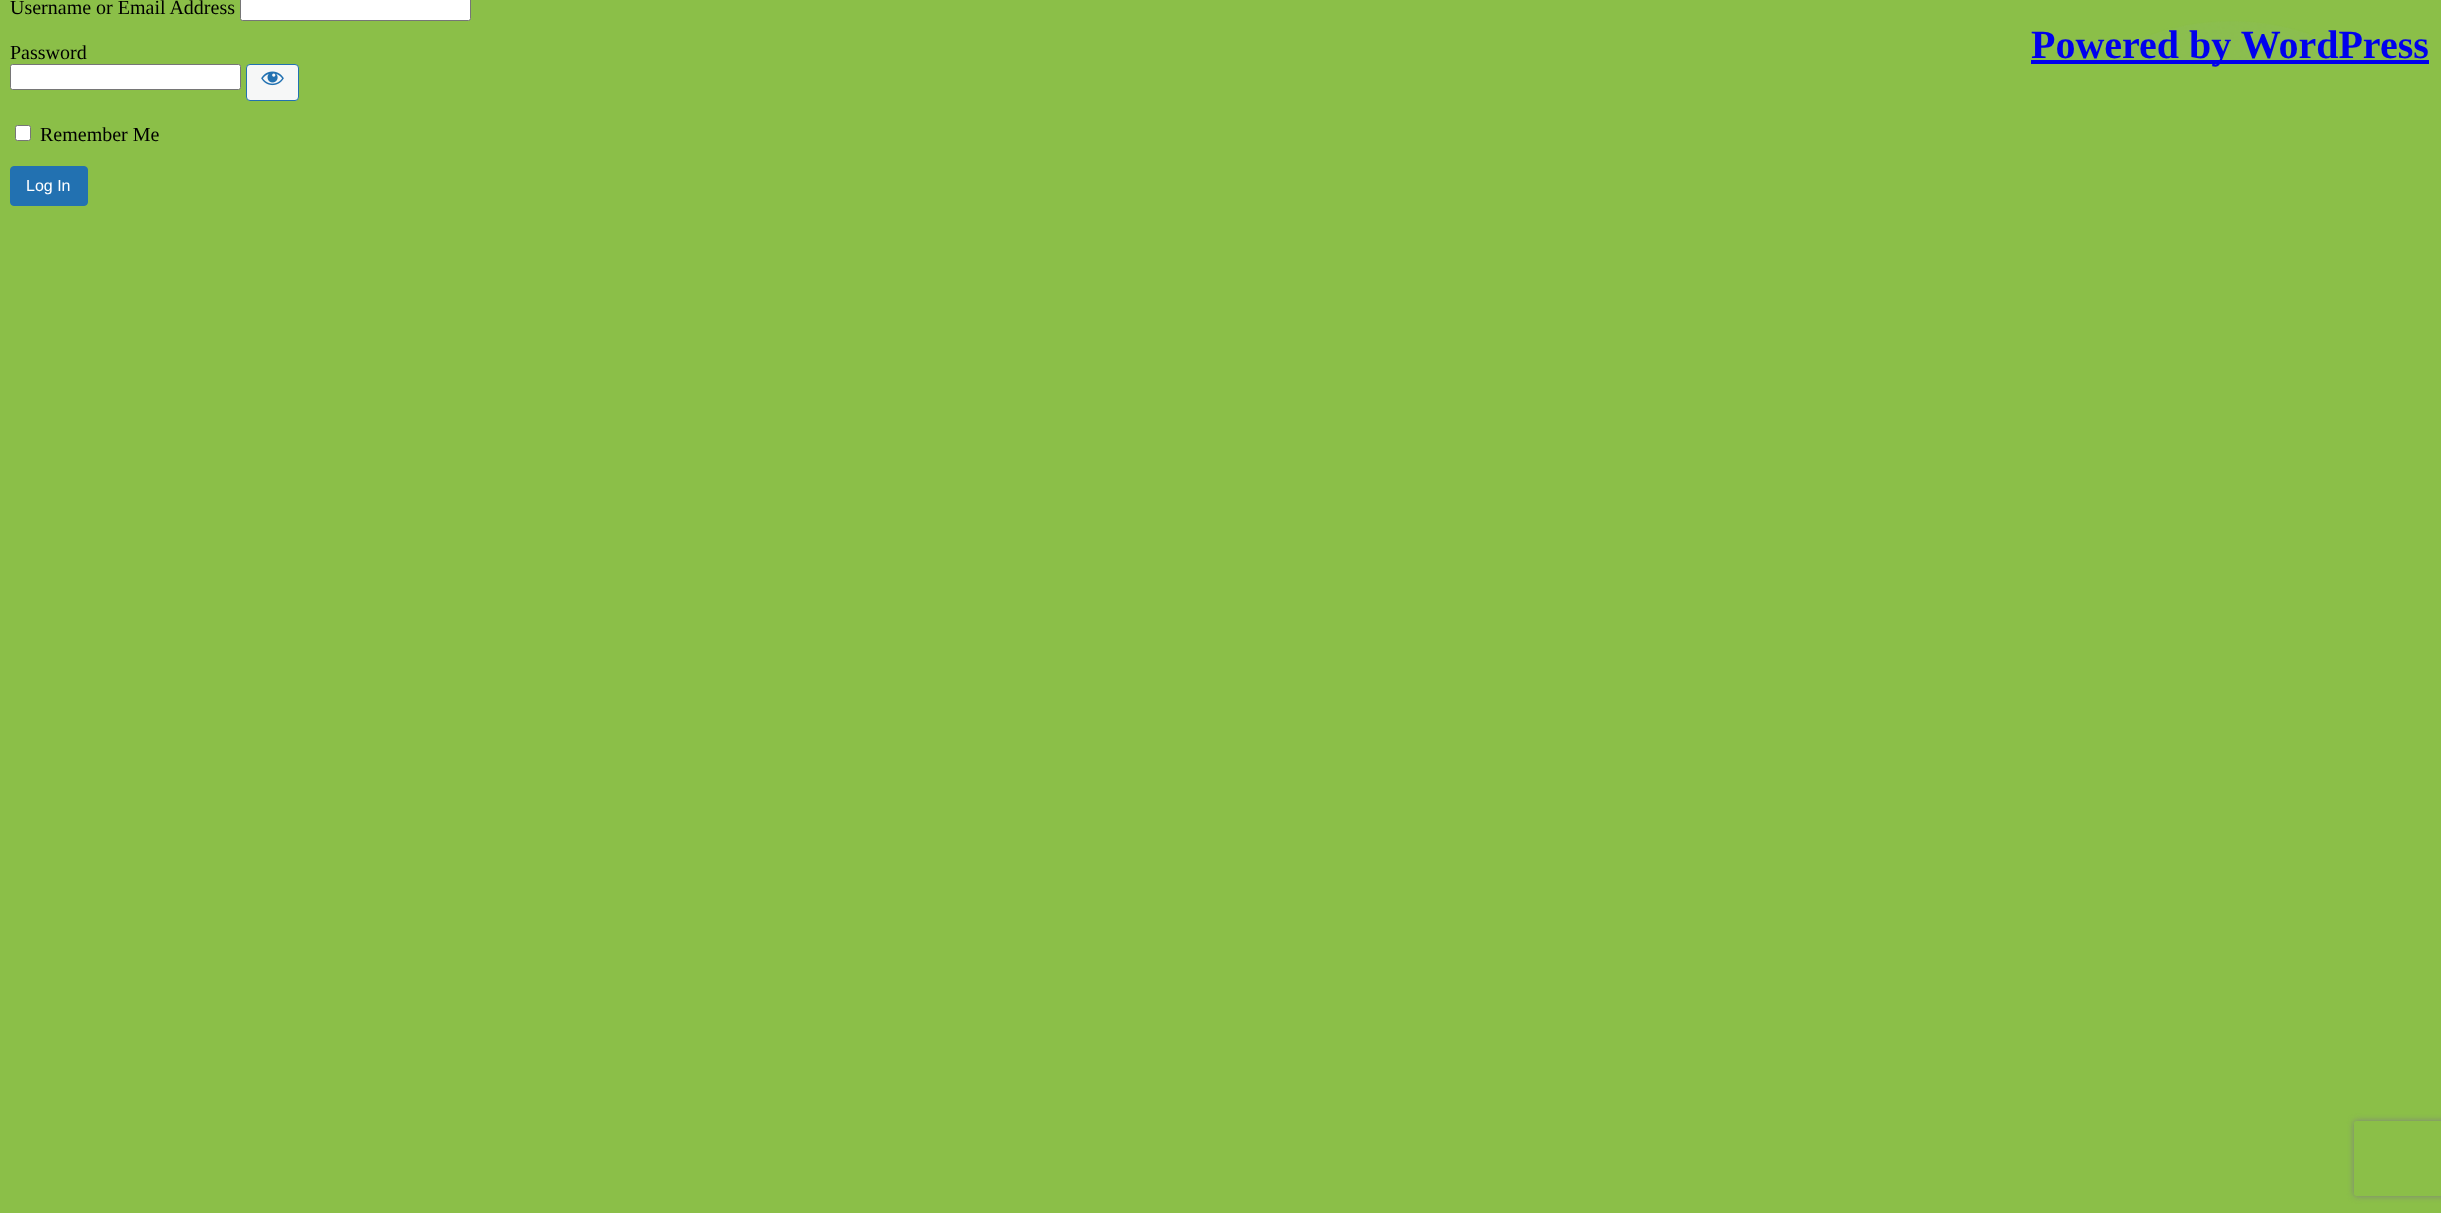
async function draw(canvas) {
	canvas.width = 2441;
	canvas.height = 1213;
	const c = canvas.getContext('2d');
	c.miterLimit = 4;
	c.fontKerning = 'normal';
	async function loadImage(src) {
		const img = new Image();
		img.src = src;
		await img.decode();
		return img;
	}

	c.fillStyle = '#8bbf48';
	c.fillRect(0, 0, 2441, 1213);
	c.font = '20px Liberation Serif';
	c.fillStyle = '#000';
	c.fillText('Username or Email Address', 10, 14);
	c.fillStyle = '#fff';
	c.beginPath();
	c.roundRect(240.5, -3.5, 230, 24, 2);
	c.fill();
	c.strokeStyle = '#767676';
	c.stroke();
	c.fillStyle = '#000';
	c.fillText('Password', 10, 59);
	c.fillStyle = '#fff';
	c.beginPath();
	c.roundRect(10.5, 64.5, 230, 25, 2);
	c.fill();
	c.stroke();
	c.fillStyle = '#f6f7f7';
	c.beginPath();
	c.roundRect(246.5, 64.5, 52, 36, 3.5);
	c.fill();
	c.strokeStyle = '#2271b1';
	c.stroke();
	c.drawImage(await loadImage('img1.png'), 261, 71, 23, 15);
	c.fillStyle = '#fff';
	c.beginPath();
	c.roundRect(15.5, 125.5, 15, 15, 2);
	c.fill();
	c.strokeStyle = '#767676';
	c.stroke();
	c.fillStyle = '#000';
	c.fillText('Remember Me', 40, 141);
	c.fillStyle = '#2271b1';
	c.beginPath();
	c.roundRect(10.5, 166.5, 77, 39, 3.5);
	c.fill();
	c.strokeStyle = '#2271b1';
	c.stroke();
	c.font = '16px Liberation Sans';
	c.fillStyle = '#fff';
	c.fillText('Log In', 26, 191);
	c.drawImage(await loadImage('img2.png'), 2096, 21, 271, 45);
	c.fillStyle = '#00e';
	c.fillRect(2031, 60, 398, 4);
	c.font = 'bold 40px Liberation Serif';
	c.fillText('Powered by WordPress', 2031, 58);
	c.save();
	c.beginPath();
	c.moveTo(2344, 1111);
	c.lineTo(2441, 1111);
	c.lineTo(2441, 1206);
	c.lineTo(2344, 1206);
	c.closePath();
	c.moveTo(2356.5, 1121);
	c.lineTo(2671.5, 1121);
	c.bezierCurveTo(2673, 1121, 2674, 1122, 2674, 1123.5);
	c.lineTo(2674, 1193.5);
	c.bezierCurveTo(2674, 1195, 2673, 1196, 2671.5, 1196);
	c.lineTo(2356.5, 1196);
	c.bezierCurveTo(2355, 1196, 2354, 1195, 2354, 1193.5);
	c.lineTo(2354, 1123.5);
	c.bezierCurveTo(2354, 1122, 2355, 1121, 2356.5, 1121);
	c.closePath();
	c.clip('evenodd');
	c.fillStyle = '#808080';
	c.filter = 'blur(3px)';
	c.beginPath();
	c.roundRect(2354, 1121, 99, 75, 2.5);
	c.fill();
	c.filter = 'none';
	c.restore();
}

draw(document.querySelector('canvas'));
